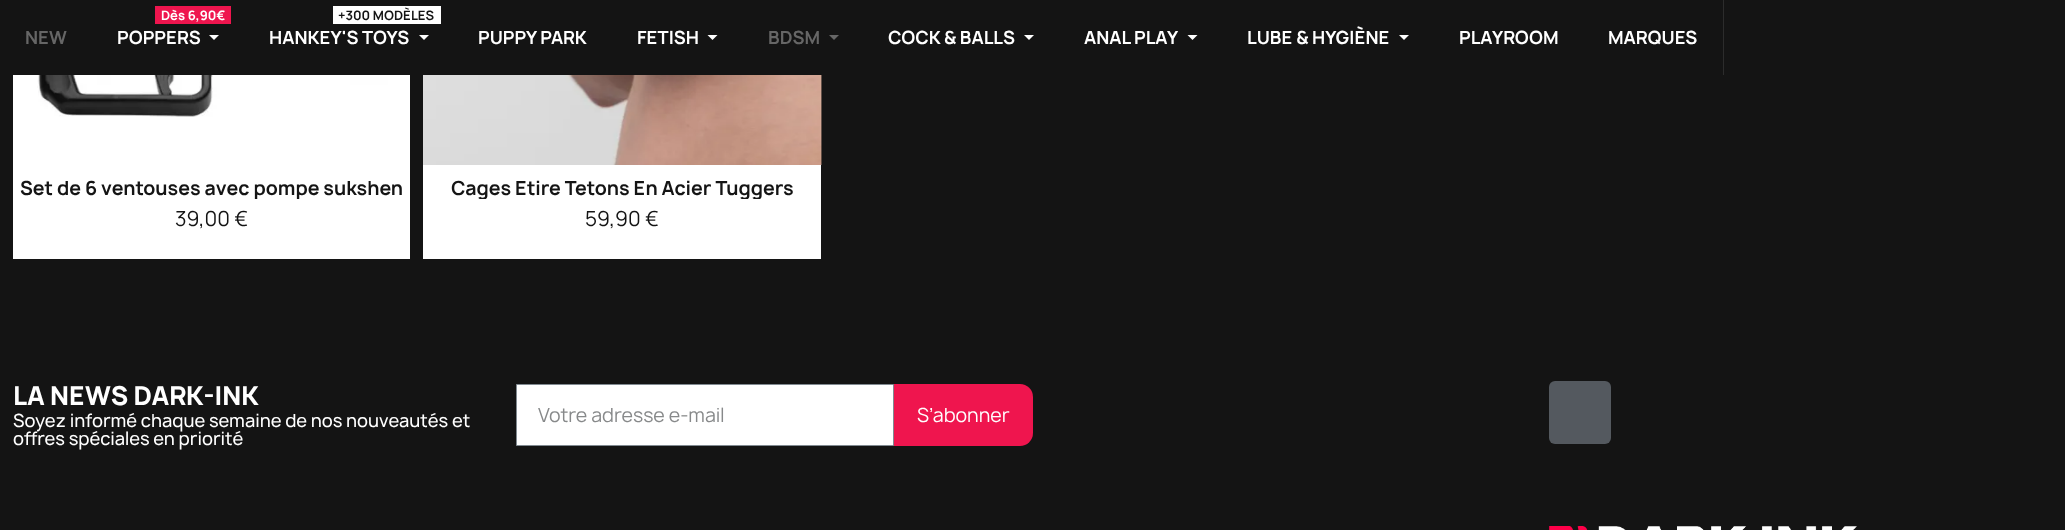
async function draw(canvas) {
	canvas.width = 2065;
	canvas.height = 530;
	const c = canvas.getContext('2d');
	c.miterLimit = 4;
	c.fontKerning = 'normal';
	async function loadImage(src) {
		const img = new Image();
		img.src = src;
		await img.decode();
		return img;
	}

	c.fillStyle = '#141414';
	c.fillRect(0, 0, 2065, 530);
	c.font = 'bold 17.5px Manrope';
	c.fillStyle = '#666';
	c.fillText('NEW', 25, 44);
	c.fillStyle = '#ef154e';
	c.fillRect(155, 6, 76, 18);
	c.font = 'bold 12.5px Manrope';
	c.fillStyle = '#fff';
	c.fillText('Dès 6,90€', 161, 20);
	c.font = 'bold 17.5px Manrope';
	c.fillText('POPPERS', 117, 44);
	c.beginPath();
	c.moveTo(209, 35);
	c.lineTo(219, 35);
	c.lineTo(214, 40);
	c.closePath();
	c.fill();
	c.fillRect(333, 6, 108, 18);
	c.font = 'bold 12.5px Manrope';
	c.fillStyle = '#141414';
	c.fillText('+300 MODÈLES', 338, 20);
	c.font = 'bold 17.5px Manrope';
	c.fillStyle = '#fff';
	c.fillText('HANKEY\'S TOYS', 269, 44);
	c.beginPath();
	c.moveTo(419, 35);
	c.lineTo(429, 35);
	c.lineTo(424, 40);
	c.closePath();
	c.fill();
	c.fillText('PUPPY PARK', 478, 44);
	c.fillText('FETISH', 637, 44);
	c.beginPath();
	c.moveTo(707.5, 35);
	c.lineTo(717.5, 35);
	c.lineTo(712.5, 40);
	c.closePath();
	c.fill();
	c.fillStyle = '#666';
	c.fillText('BDSM', 768, 44);
	c.beginPath();
	c.moveTo(829, 35);
	c.lineTo(839, 35);
	c.lineTo(834, 40);
	c.closePath();
	c.fill();
	c.fillStyle = '#fff';
	c.fillText('COCK & BALLS', 888, 44);
	c.beginPath();
	c.moveTo(1024, 35);
	c.lineTo(1034, 35);
	c.lineTo(1029, 40);
	c.closePath();
	c.fill();
	c.fillText('ANAL PLAY', 1084, 44);
	c.beginPath();
	c.moveTo(1187.5, 35);
	c.lineTo(1197.5, 35);
	c.lineTo(1192.5, 40);
	c.closePath();
	c.fill();
	c.fillText('LUBE & HYGIÈNE', 1247, 44);
	c.beginPath();
	c.moveTo(1399, 35);
	c.lineTo(1409, 35);
	c.lineTo(1404, 40);
	c.closePath();
	c.fill();
	c.fillText('PLAYROOM', 1459, 44);
	c.fillStyle = '#2c2c2c';
	c.fillRect(1723, 0, 1, 75);
	c.fillStyle = '#fff';
	c.fillText('MARQUES', 1608, 44);
	c.fillRect(13, 75, 397, 184);
	c.drawImage(await loadImage('img1.png'), 37, 75, 351, 42);
	c.save();
	c.beginPath();
	c.rect(19, 179, 385, 20);
	c.clip();
	c.font = 'bold 18.75px Manrope';
	c.fillStyle = '#141414';
	c.fillText('Set de 6 ventouses avec pompe sukshen', 20, 195);
	c.restore();
	c.font = '20px Manrope';
	c.fillStyle = '#141414';
	c.fillText('39,00 €', 175, 226);
	c.fillStyle = '#fff';
	c.fillRect(423, 75, 398, 184);
	c.drawImage(await loadImage('img2.png'), 423, 75, 399, 90);
	c.save();
	c.beginPath();
	c.rect(429, 179, 386, 20);
	c.clip();
	c.font = 'bold 18.75px Manrope';
	c.fillStyle = '#141414';
	c.fillText('Cages Etire Tetons En Acier Tuggers', 451, 195);
	c.restore();
	c.fillStyle = '#141414';
	c.fillText('59,90 €', 585, 226);
	c.font = '800 25px Manrope';
	c.fillStyle = '#fff';
	c.fillText('LA NEWS DARK-INK', 13, 405);
	c.font = '500 17.5px Manrope';
	c.fillText('Soyez informé chaque semaine de nos nouveautés et', 13, 427);
	c.fillText('offres spéciales en priorité', 13, 445);
	c.beginPath();
	c.rect(516.5, 384.5, 377, 61);
	c.fill();
	c.strokeStyle = '#818a91';
	c.stroke();
	c.font = '18.75px Manrope';
	c.fillStyle = '#87898a';
	c.fillText('Votre adresse e-mail', 538, 422);
	c.fillStyle = '#ef154e';
	c.beginPath();
	c.roundRect(894, 384, 139, 62, [0, 13, 13, 0]);
	c.fill();
	c.fillStyle = '#fff';
	c.fillText('S’abonner', 917, 422);
	c.fillStyle = '#54595f';
	c.beginPath();
	c.roundRect(1549, 381, 62, 63, 6);
	c.fill();
	c.drawImage(await loadImage('img3.png'), 1549, 526, 308, 4);
}

draw(document.querySelector('canvas'));
